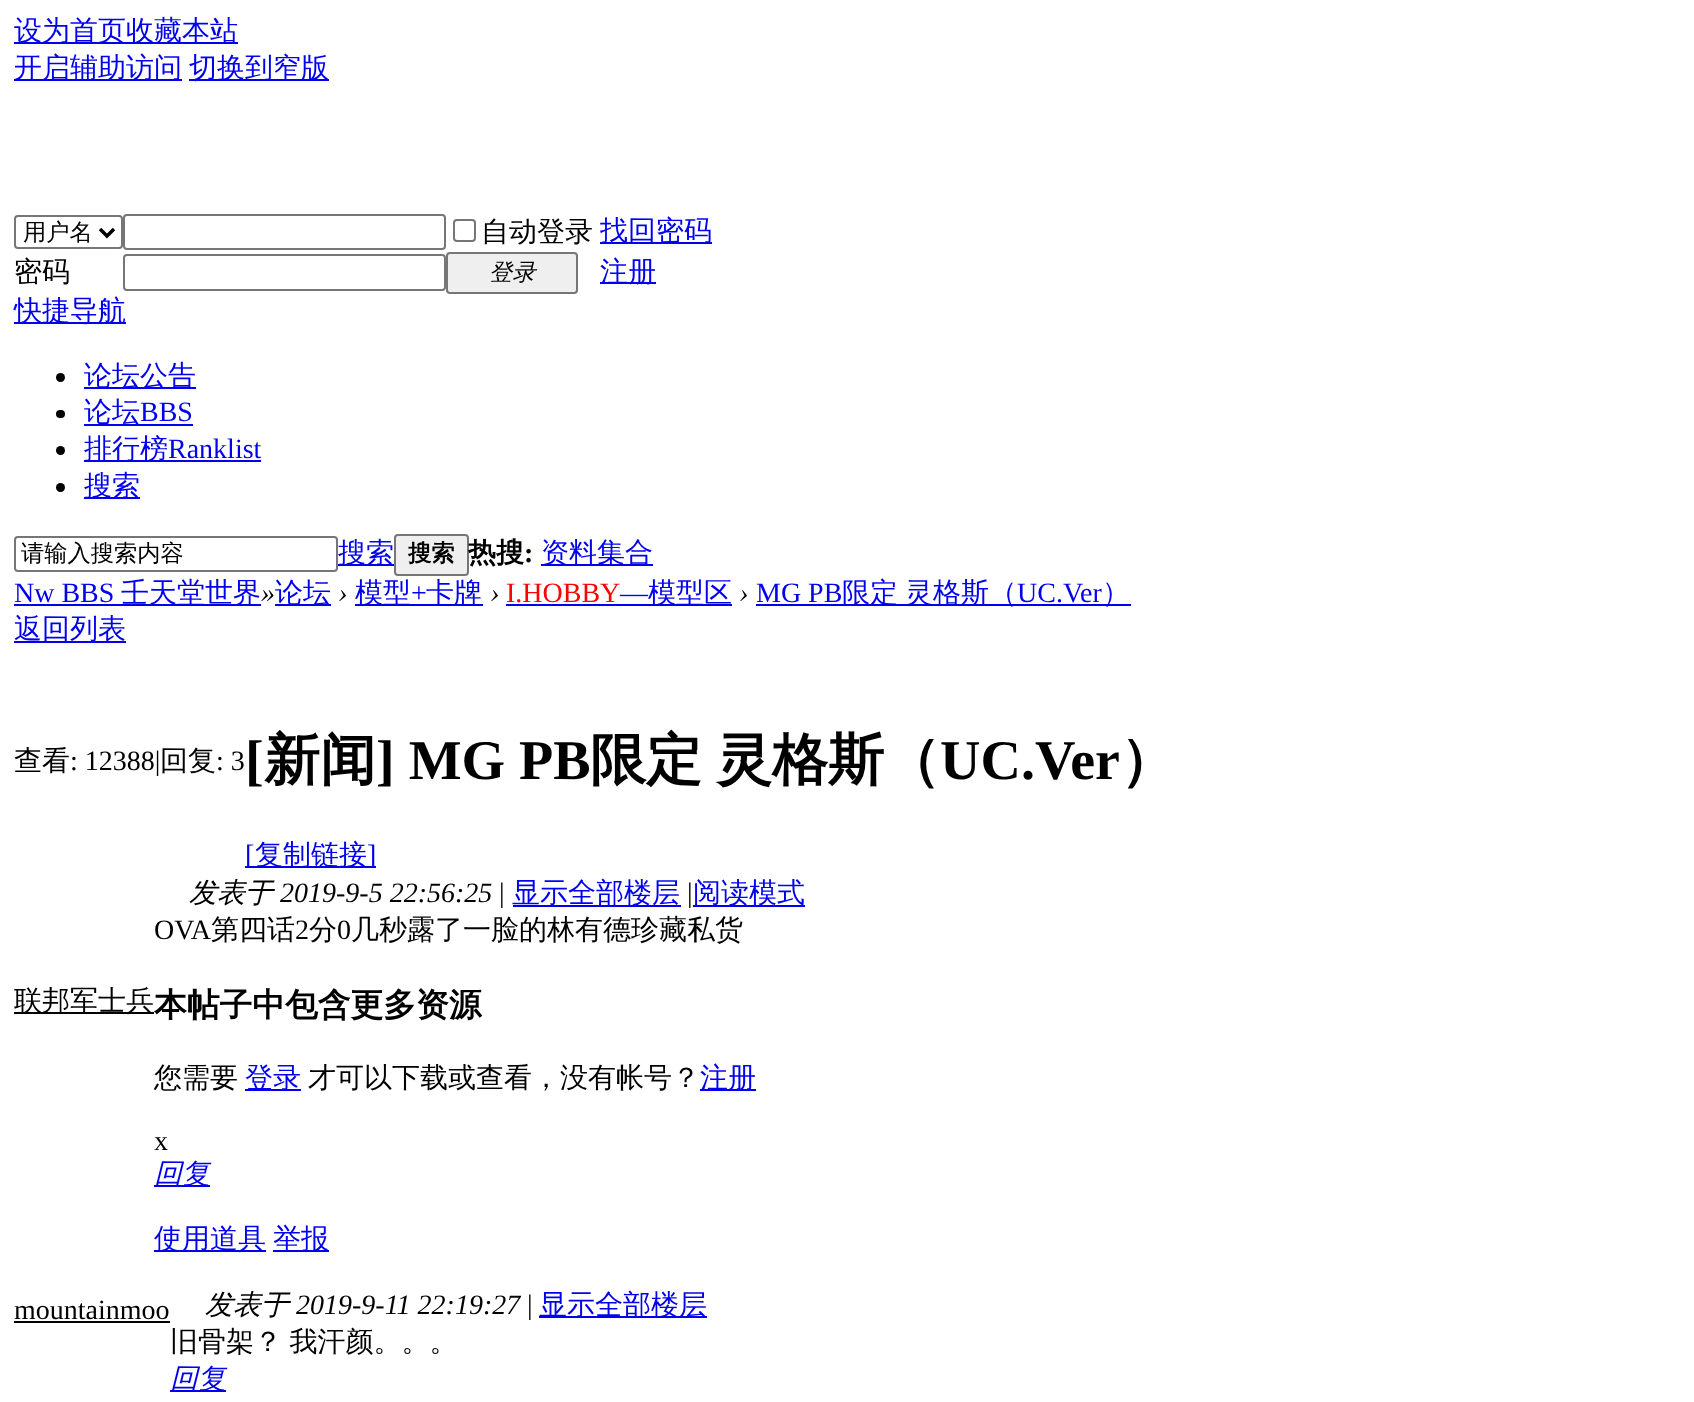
async function draw(canvas) {
	canvas.width = 1694;
	canvas.height = 1402;
	const c = canvas.getContext('2d');
	c.miterLimit = 4;
	c.fontKerning = 'normal';

	c.fillStyle = '#fff';
	c.fillRect(0, 0, 1694, 1402);
	c.fillStyle = '#00e';
	c.fillRect(14, 42, 224, 2);
	c.font = '500 28px WenQuanYi Zen Hei';
	c.fillText('设为首页收藏本站', 14, 40);
	c.fillRect(14, 79, 168, 2);
	c.fillText('开启辅助访问', 14, 77);
	c.fillRect(189, 79, 140, 2);
	c.fillText('切换到窄版', 189, 77);
	c.beginPath();
	c.roundRect(15, 216, 107, 32, 3);
	c.strokeStyle = '#767676';
	c.lineWidth = 2;
	c.stroke();
	c.beginPath();
	c.moveTo(100, 229);
	c.lineTo(107, 236);
	c.lineTo(114, 229);
	c.strokeStyle = '#000';
	c.lineWidth = 3.5;
	c.stroke();
	c.font = '500 23.25px WenQuanYi Zen Hei';
	c.fillStyle = '#000';
	c.fillText('用户名', 23, 240);
	c.beginPath();
	c.roundRect(124, 215, 321, 34, 3);
	c.strokeStyle = '#767676';
	c.lineWidth = 2;
	c.stroke();
	c.beginPath();
	c.roundRect(454, 220, 21, 21, 3);
	c.stroke();
	c.font = '500 28px WenQuanYi Zen Hei';
	c.fillText('自动登录', 481, 241);
	c.fillStyle = '#00e';
	c.fillRect(600, 242, 112, 2);
	c.fillText('找回密码', 600, 240);
	c.fillStyle = '#000';
	c.fillText('密码', 14, 281);
	c.beginPath();
	c.roundRect(124, 255, 321, 35, 3);
	c.stroke();
	c.fillStyle = '#efefef';
	c.beginPath();
	c.roundRect(447, 253, 130, 40, 3);
	c.fill();
	c.stroke();
	c.font = 'italic 500 23.25px WenQuanYi Zen Hei';
	c.fillStyle = '#000';
	c.fillText('登录', 489, 280);
	c.fillStyle = '#00e';
	c.fillRect(600, 282, 56, 2);
	c.font = '500 28px WenQuanYi Zen Hei';
	c.fillText('注册', 600, 281);
	c.fillRect(14, 322, 112, 2);
	c.fillText('快捷导航', 14, 320);
	c.fillStyle = '#000';
	c.beginPath();
	c.arc(60.5, 377.5, 4.5, 0, 2 * Math.PI);
	c.fill();
	c.fillStyle = '#00e';
	c.fillRect(84, 387, 112, 2);
	c.fillText('论坛公告', 84, 385);
	c.fillStyle = '#000';
	c.beginPath();
	c.roundRect(56, 410, 9, 8, 4);
	c.fill();
	c.fillStyle = '#00e';
	c.fillRect(84, 424, 109, 2);
	c.fillText('论坛', 84, 421);
	c.font = '28px Liberation Serif';
	c.fillText('BBS', 140, 421);
	c.fillStyle = '#000';
	c.beginPath();
	c.arc(60.5, 450.5, 4.5, 0, 2 * Math.PI);
	c.fill();
	c.fillStyle = '#00e';
	c.fillRect(84, 460, 177, 2);
	c.font = '500 28px WenQuanYi Zen Hei';
	c.fillText('排行榜', 84, 458);
	c.font = '28px Liberation Serif';
	c.fillText('Ranklist', 168, 458);
	c.fillStyle = '#000';
	c.beginPath();
	c.arc(60.5, 487.5, 4.5, 0, 2 * Math.PI);
	c.fill();
	c.fillStyle = '#00e';
	c.fillRect(84, 497, 56, 2);
	c.font = '500 28px WenQuanYi Zen Hei';
	c.fillText('搜索', 84, 495);
	c.beginPath();
	c.roundRect(15, 537, 322, 34, 3);
	c.stroke();
	c.font = '500 23.25px WenQuanYi Zen Hei';
	c.fillStyle = '#000';
	c.fillText('请输入搜索内容', 21, 561);
	c.fillStyle = '#00e';
	c.fillRect(338, 564, 56, 2);
	c.font = '500 28px WenQuanYi Zen Hei';
	c.fillText('搜索', 338, 562);
	c.fillStyle = '#efefef';
	c.beginPath();
	c.roundRect(395, 535, 73, 40, 3);
	c.fill();
	c.stroke();
	c.font = 'bold 23.25px WenQuanYi Zen Hei';
	c.fillStyle = '#000';
	c.fillText('搜索', 408, 561);
	c.font = 'bold 28px WenQuanYi Zen Hei';
	c.fillText('热搜', 468, 562);
	c.font = 'bold 28px Liberation Serif';
	c.fillText(':', 524, 562);
	c.fillStyle = '#00e';
	c.fillRect(541, 564, 112, 2);
	c.font = '500 28px WenQuanYi Zen Hei';
	c.fillText('资料集合', 541, 562);
	c.font = '28px Liberation Serif';
	c.fillText('Nw BBS', 14, 602);
	c.fillRect(14, 604, 247, 2);
	c.font = '500 28px WenQuanYi Zen Hei';
	c.fillText('壬天堂世界', 121, 602);
	c.font = 'italic 28px Liberation Serif';
	c.fillStyle = '#000';
	c.fillText('»', 261, 602);
	c.fillStyle = '#00e';
	c.fillRect(275, 604, 56, 2);
	c.font = '500 28px WenQuanYi Zen Hei';
	c.fillText('论坛', 275, 602);
	c.font = 'italic 28px Liberation Serif';
	c.fillStyle = '#000';
	c.fillText('›', 338, 602);
	c.fillStyle = '#00e';
	c.fillRect(355, 604, 128, 2);
	c.font = '500 28px WenQuanYi Zen Hei';
	c.fillText('模型', 355, 602);
	c.font = '28px Liberation Serif';
	c.fillText('+', 411, 602);
	c.font = '500 28px WenQuanYi Zen Hei';
	c.fillText('卡牌', 426, 602);
	c.font = 'italic 28px Liberation Serif';
	c.fillStyle = '#000';
	c.fillText('›', 490, 602);
	c.font = '28px Liberation Serif';
	c.fillStyle = '#f00';
	c.fillText('I.HOBBY', 506, 602);
	c.fillStyle = '#00e';
	c.fillText('—', 620, 602);
	c.fillRect(506, 604, 226, 2);
	c.font = '500 28px WenQuanYi Zen Hei';
	c.fillText('模型区', 648, 602);
	c.font = 'italic 28px Liberation Serif';
	c.fillStyle = '#000';
	c.fillText('›', 739, 602);
	c.font = '28px Liberation Serif';
	c.fillStyle = '#00e';
	c.fillText('MG PB', 756, 602);
	c.fillRect(756, 604, 375, 2);
	c.font = '500 28px WenQuanYi Zen Hei';
	c.fillText('限定', 842, 602);
	c.fillText('灵格斯（', 905, 602);
	c.font = '28px Liberation Serif';
	c.fillText('UC.Ver', 1017, 602);
	c.font = '500 28px WenQuanYi Zen Hei';
	c.fillText('）', 1102, 602);
	c.fillRect(14, 641, 112, 2);
	c.fillText('返回列表', 14, 638);
	c.fillStyle = '#000';
	c.fillText('查看', 14, 770);
	c.font = '28px Liberation Serif';
	c.fillText(': 12388|', 70, 770);
	c.font = '500 28px WenQuanYi Zen Hei';
	c.fillText('回复', 160, 770);
	c.font = '28px Liberation Serif';
	c.fillText(': 3', 216, 770);
	c.font = 'bold 56px Liberation Serif';
	c.fillText('[', 245, 779);
	c.font = 'bold 56px WenQuanYi Zen Hei';
	c.fillText('新闻', 264, 779);
	c.font = 'bold 56px Liberation Serif';
	c.fillText('] MG PB', 376, 779);
	c.font = 'bold 56px WenQuanYi Zen Hei';
	c.fillText('限定', 590, 779);
	c.fillText('灵格斯（', 716, 779);
	c.font = 'bold 56px Liberation Serif';
	c.fillText('UC.Ver', 940, 779);
	c.font = 'bold 56px WenQuanYi Zen Hei';
	c.fillText('）', 1120, 779);
	c.fillStyle = '#00e';
	c.fillRect(245, 866, 131, 2);
	c.font = '28px Liberation Serif';
	c.fillText('[', 245, 864);
	c.font = '500 28px WenQuanYi Zen Hei';
	c.fillText('复制链接', 255, 864);
	c.font = '28px Liberation Serif';
	c.fillText(']', 367, 864);
	c.fillStyle = '#000';
	c.fillRect(14, 1012, 140, 2);
	c.font = '500 28px WenQuanYi Zen Hei';
	c.fillText('联邦军士兵', 14, 1010);
	c.font = 'italic 500 28px WenQuanYi Zen Hei';
	c.fillText('发表于', 189, 902);
	c.font = 'italic 28px Liberation Serif';
	c.fillText('2019-9-5 22:56:25', 280, 902);
	c.font = '28px Liberation Serif';
	c.fillText('|', 499, 902);
	c.fillStyle = '#00e';
	c.fillRect(513, 905, 168, 2);
	c.font = '500 28px WenQuanYi Zen Hei';
	c.fillText('显示全部楼层', 512, 902);
	c.font = '28px Liberation Serif';
	c.fillStyle = '#000';
	c.fillText('|', 687, 902);
	c.fillStyle = '#00e';
	c.fillRect(693, 905, 112, 2);
	c.font = '500 28px WenQuanYi Zen Hei';
	c.fillText('阅读模式', 693, 902);
	c.font = '28px Liberation Serif';
	c.fillStyle = '#000';
	c.fillText('OVA', 154, 939);
	c.font = '500 28px WenQuanYi Zen Hei';
	c.fillText('第四话', 211, 939);
	c.font = '28px Liberation Serif';
	c.fillText('2', 295, 939);
	c.font = '500 28px WenQuanYi Zen Hei';
	c.fillText('分', 309, 939);
	c.font = '28px Liberation Serif';
	c.fillText('0', 337, 939);
	c.font = '500 28px WenQuanYi Zen Hei';
	c.fillText('几秒露了一脸的林有德珍藏私货', 351, 939);
	c.font = 'bold 32.75px WenQuanYi Zen Hei';
	c.fillText('本帖子中包含更多资源', 154, 1016);
	c.font = '500 28px WenQuanYi Zen Hei';
	c.fillText('您需要', 154, 1087);
	c.fillStyle = '#00e';
	c.fillRect(245, 1089, 56, 2);
	c.fillText('登录', 245, 1087);
	c.fillStyle = '#000';
	c.fillText('才可以下载或查看，没有帐号？', 308, 1087);
	c.fillStyle = '#00e';
	c.fillRect(700, 1089, 56, 2);
	c.fillText('注册', 700, 1087);
	c.font = '28px Liberation Serif';
	c.fillStyle = '#000';
	c.fillText('x', 154, 1150);
	c.fillStyle = '#00e';
	c.fillRect(154, 1185, 56, 2);
	c.font = 'italic 500 28px WenQuanYi Zen Hei';
	c.fillText('回复', 154, 1183);
	c.fillRect(154, 1250, 112, 2);
	c.font = '500 28px WenQuanYi Zen Hei';
	c.fillText('使用道具', 154, 1248);
	c.fillRect(273, 1250, 56, 2);
	c.fillText('举报', 273, 1248);
	c.font = '28px Liberation Serif';
	c.fillStyle = '#000';
	c.fillText('mountainmoo', 14, 1319);
	c.fillRect(14, 1321, 156, 2);
	c.font = 'italic 500 28px WenQuanYi Zen Hei';
	c.fillText('发表于', 205, 1314);
	c.font = 'italic 28px Liberation Serif';
	c.fillText('2019-9-11 22:19:27', 296, 1314);
	c.font = '28px Liberation Serif';
	c.fillText('|', 527, 1314);
	c.fillStyle = '#00e';
	c.fillRect(539, 1316, 168, 2);
	c.font = '500 28px WenQuanYi Zen Hei';
	c.fillText('显示全部楼层', 539, 1314);
	c.wordSpacing = '-1px';
	c.fillStyle = '#000';
	c.fillText('旧骨架？ 我汗颜。。。', 170, 1351);
	c.fillStyle = '#00e';
	c.fillRect(170, 1390, 56, 2);
	c.wordSpacing = '0px';
	c.font = 'italic 500 28px WenQuanYi Zen Hei';
	c.fillText('回复', 170, 1388);
}

draw(document.querySelector('canvas'));
